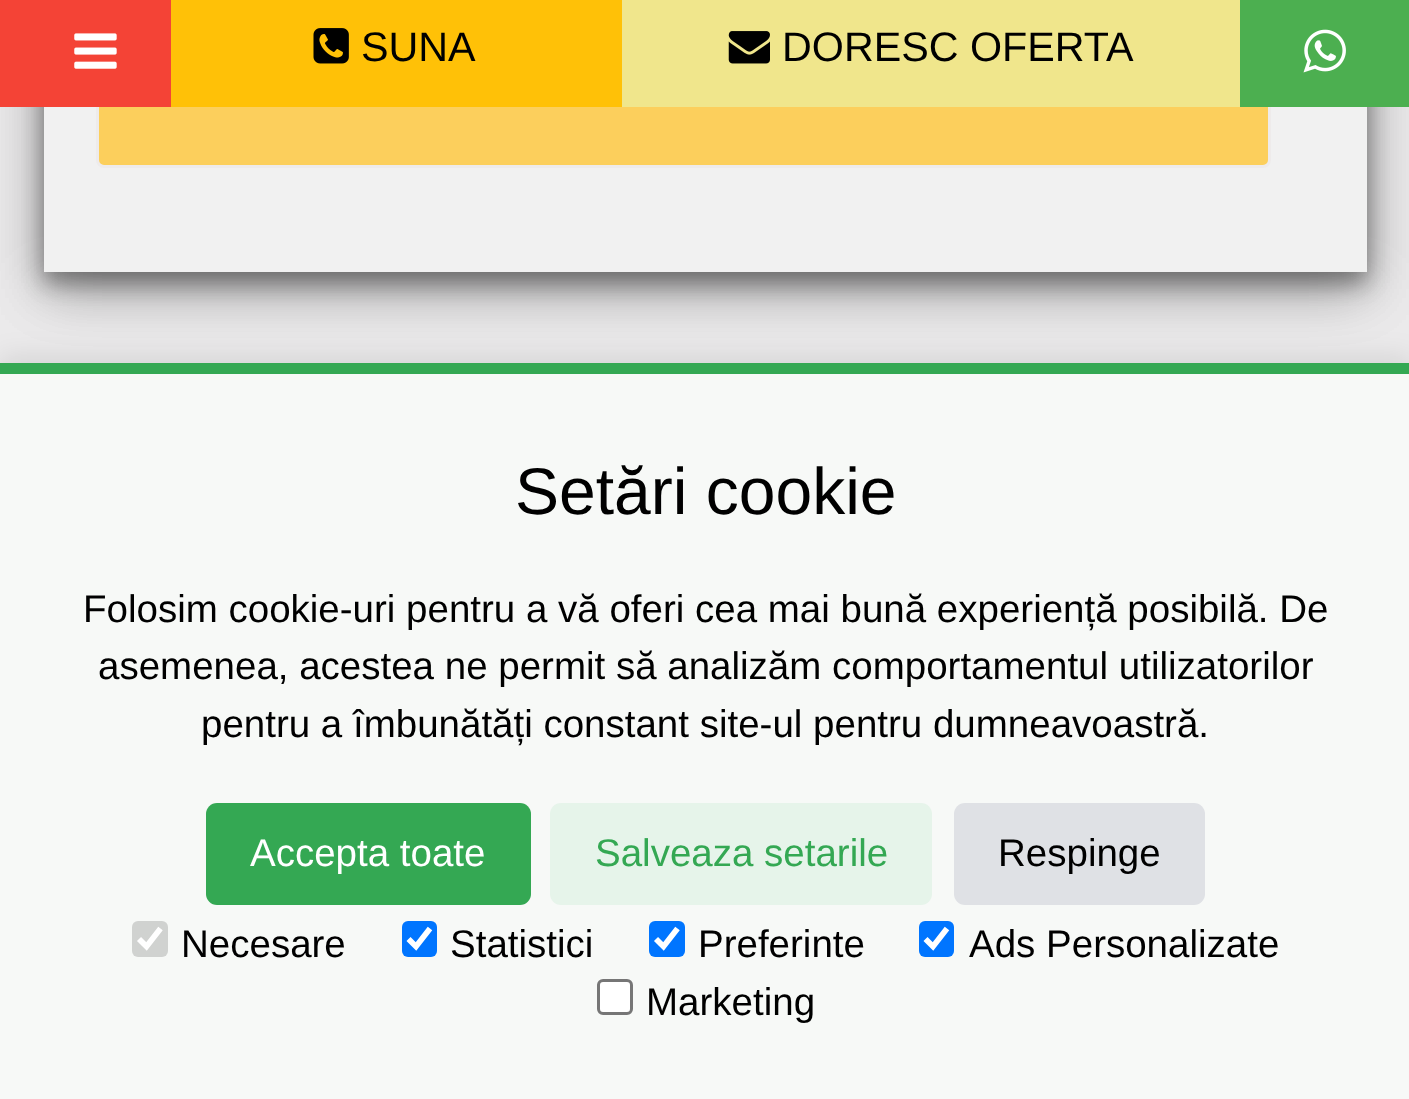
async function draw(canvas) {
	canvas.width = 1409;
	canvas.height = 1099;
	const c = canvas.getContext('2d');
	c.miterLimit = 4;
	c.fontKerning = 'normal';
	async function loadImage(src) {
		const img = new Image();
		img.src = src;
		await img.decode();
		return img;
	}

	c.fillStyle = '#ebeaeb';
	c.fillRect(0, 0, 1409, 1099);
	c.fillStyle = '#00000030';
	c.filter = 'blur(27.5px)';
	c.beginPath();
	c.rect(44, -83, 1323, 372);
	c.fill();
	c.filter = 'none';
	c.fillStyle = '#00000033';
	c.filter = 'blur(11px)';
	c.beginPath();
	c.rect(44, -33, 1323, 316);
	c.fill();
	c.filter = 'none';
	c.fillStyle = '#00000030';
	c.filter = 'blur(27.5px)';
	c.beginPath();
	c.rect(44, -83, 1323, 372);
	c.fill();
	c.filter = 'none';
	c.fillStyle = '#00000033';
	c.filter = 'blur(11px)';
	c.beginPath();
	c.rect(44, -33, 1323, 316);
	c.fill();
	c.filter = 'none';
	c.fillStyle = '#f1f1f1';
	c.fillRect(44, 107, 1323, 165);
	c.fillStyle = '#fccf5c';
	c.beginPath();
	c.roundRect(97.5, 31.5, 1172, 135, 6.5);
	c.fill();
	c.strokeStyle = '#eeebeb';
	c.lineWidth = 3;
	c.stroke();
	c.fillStyle = '#f44336';
	c.fillRect(0, 0, 171, 107);
	c.drawImage(await loadImage('img1.png'), 74, 33, 43, 36);
	c.fillStyle = '#ffc107';
	c.fillRect(171, 0, 451, 107);
	c.drawImage(await loadImage('img2.png'), 313, 28, 36, 36);
	c.font = '41.25px Liberation Sans';
	c.fillStyle = '#000';
	c.fillText('SUNA', 361, 61);
	c.fillStyle = '#f0e68c';
	c.fillRect(622, 0, 618, 107);
	c.drawImage(await loadImage('img3.png'), 728, 31, 42, 33);
	c.fillStyle = '#000';
	c.fillText('DORESC OFERTA', 782, 61);
	c.fillStyle = '#4caf50';
	c.fillRect(1240, 0, 169, 107);
	c.drawImage(await loadImage('img4.png'), 1303, 29, 43, 44);
	c.fillStyle = '#0000001a';
	c.filter = 'blur(14px)';
	c.beginPath();
	c.rect(0, 358, 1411, 737);
	c.fill();
	c.filter = 'none';
	c.fillStyle = '#f7f9f7';
	c.fillRect(0, 374, 1409, 725);
	c.fillStyle = '#34a853';
	c.fillRect(0, 363, 1409, 11);
	c.font = '66px Liberation Sans';
	c.fillStyle = '#000';
	c.fillText('Setări cookie', 515, 514);
	c.font = '38.5px Liberation Sans';
	for (const [text, x, y] of [
		['Folosim cookie-uri pentru a vă oferi cea mai bună experiență posibilă. De', 83, 622],
		['asemenea, acestea ne permit să analizăm comportamentul utilizatorilor', 98, 679],
		['pentru a îmbunătăți constant site-ul pentru dumneavoastră.', 201, 737],
	]) {
		c.fillText(text, x, y);
	}
	c.fillStyle = '#34a853';
	c.beginPath();
	c.roundRect(206, 803, 325, 102, 11);
	c.fill();
	c.fillStyle = '#fff';
	c.fillText('Accepta toate', 250, 866);
	c.fillStyle = '#e6f4ea';
	c.beginPath();
	c.roundRect(550, 803, 382, 102, 11);
	c.fill();
	c.fillStyle = '#34a853';
	c.fillText('Salveaza setarile', 595, 866);
	c.fillStyle = '#dfe1e5';
	c.beginPath();
	c.roundRect(954, 803, 251, 102, 11);
	c.fill();
	c.fillStyle = '#000';
	c.fillText('Respinge', 998, 866);
	c.fillStyle = '#d0d2d0';
	c.beginPath();
	c.roundRect(132, 921, 36, 36, 6);
	c.fill();
	c.beginPath();
	c.moveTo(139, 939);
	c.lineTo(146.5, 946.5);
	c.lineTo(160.5, 928.5);
	c.strokeStyle = '#fff';
	c.lineWidth = 5.7;
	c.stroke();
	c.fillStyle = '#000';
	c.fillText('Necesare', 181, 957);
	c.fillStyle = '#0075ff';
	c.beginPath();
	c.roundRect(402, 921, 35, 36, 6);
	c.fill();
	c.beginPath();
	c.moveTo(408.5, 939);
	c.lineTo(416, 946.5);
	c.lineTo(430, 928.5);
	c.stroke();
	c.fillStyle = '#000';
	c.fillText('Statistici', 450, 957);
	c.fillStyle = '#0075ff';
	c.beginPath();
	c.roundRect(649, 921, 36, 36, 6);
	c.fill();
	c.beginPath();
	c.moveTo(656, 939);
	c.lineTo(663.5, 946.5);
	c.lineTo(677.5, 928.5);
	c.stroke();
	c.fillStyle = '#000';
	c.fillText('Preferinte', 698, 957);
	c.fillStyle = '#0075ff';
	c.beginPath();
	c.roundRect(919, 921, 35, 36, 6);
	c.fill();
	c.beginPath();
	c.moveTo(925.5, 939);
	c.lineTo(933, 946.5);
	c.lineTo(947, 928.5);
	c.stroke();
	c.fillStyle = '#000';
	c.fillText('Ads Personalizate', 969, 957);
	c.fillStyle = '#fff';
	c.beginPath();
	c.roundRect(598.5, 980.5, 33, 33, 4.5);
	c.fill();
	c.strokeStyle = '#767676';
	c.lineWidth = 3;
	c.stroke();
	c.fillStyle = '#000';
	c.fillText('Marketing', 646, 1015);
}

draw(document.querySelector('canvas'));
